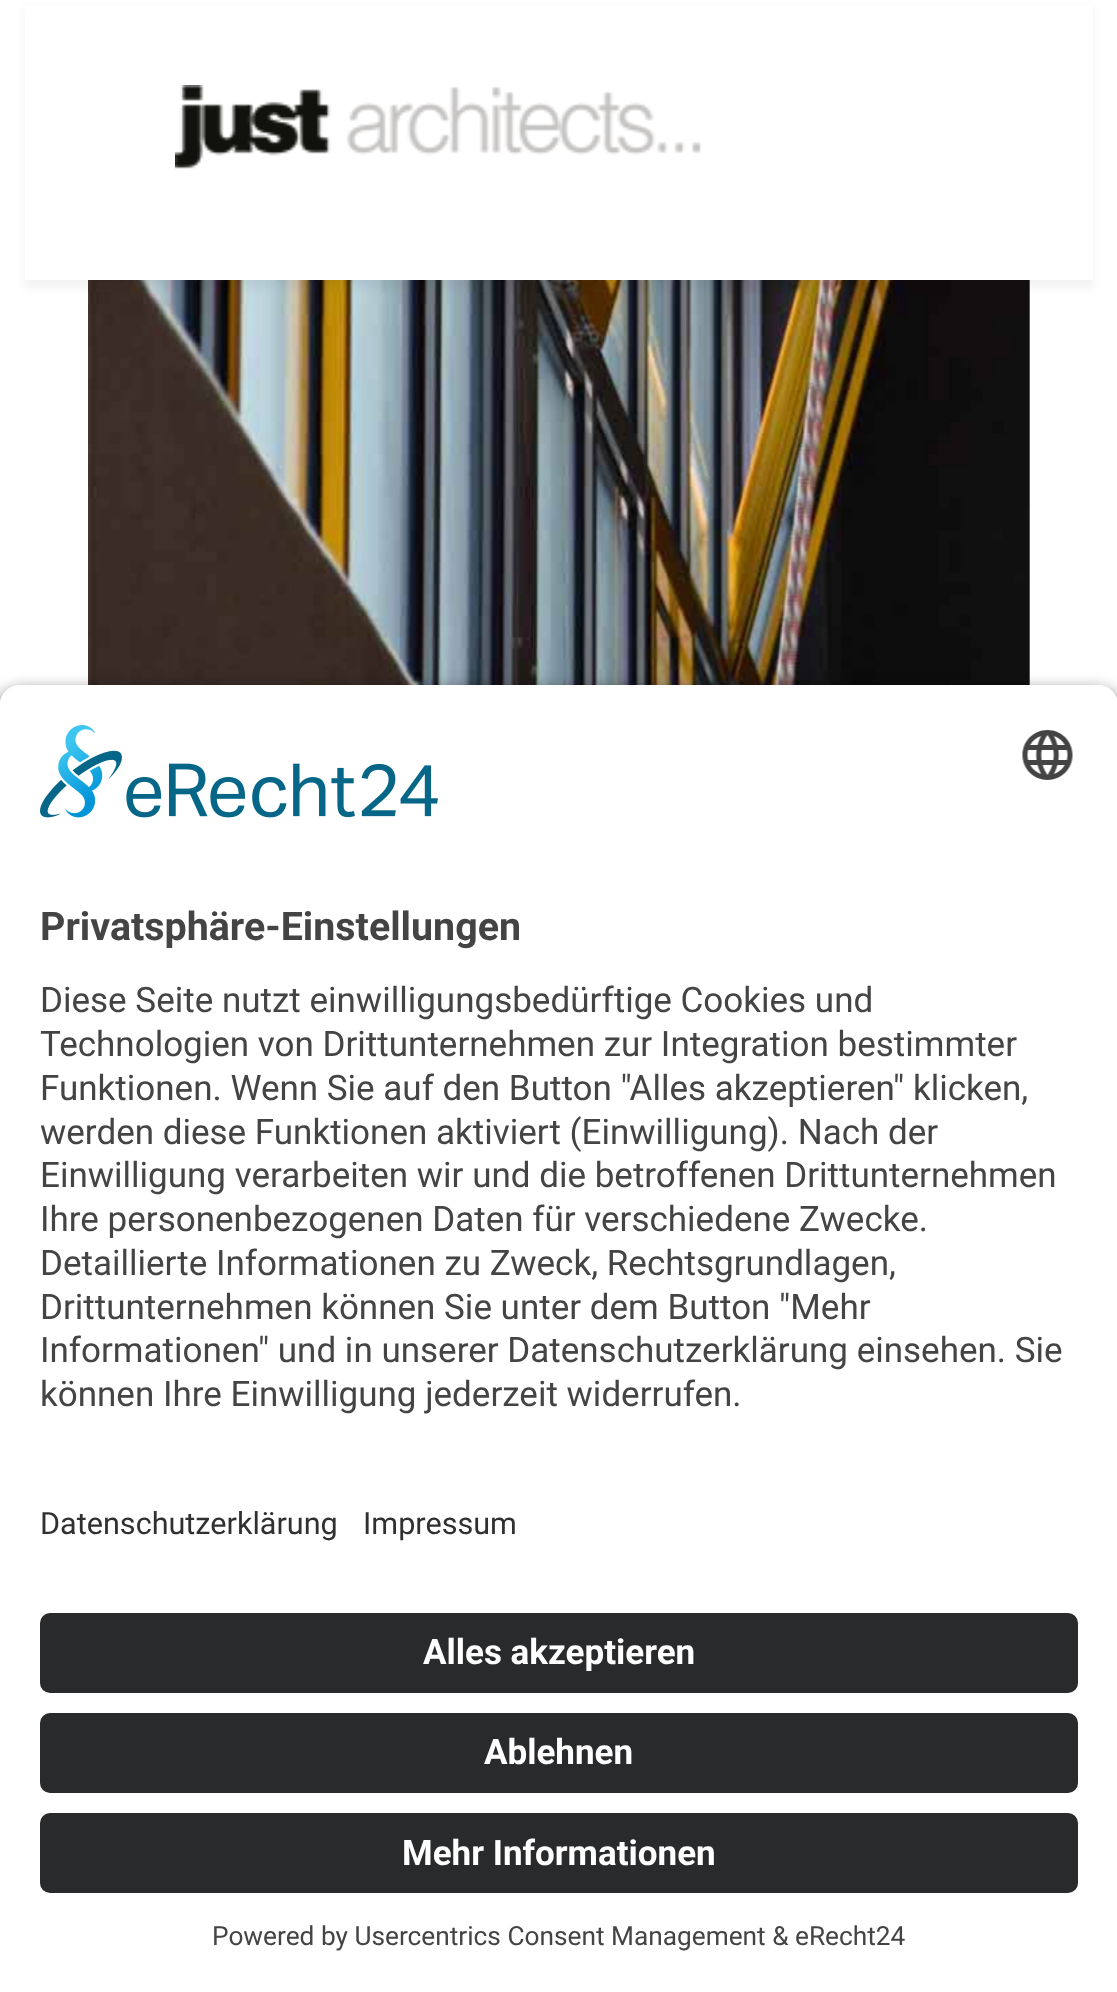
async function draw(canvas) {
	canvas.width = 1117;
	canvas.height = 1992;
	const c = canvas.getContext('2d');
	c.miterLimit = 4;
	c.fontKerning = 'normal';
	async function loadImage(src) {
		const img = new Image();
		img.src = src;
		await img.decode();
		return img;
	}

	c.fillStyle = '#fff';
	c.fillRect(0, 0, 1117, 1992);
	c.drawImage(await loadImage('img2.png'), 88, 280, 942, 405);
	c.fillStyle = '#0000000d';
	c.filter = 'blur(4px)';
	c.beginPath();
	c.rect(25, 8, 1068, 280);
	c.fill();
	c.filter = 'none';
	c.fillStyle = '#fff';
	c.fillRect(25, 5, 1068, 275);
	c.drawImage(await loadImage('img1.png'), 175, 85, 526, 84);
	c.save();
	c.beginPath();
	c.moveTo(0, 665);
	c.lineTo(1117, 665);
	c.lineTo(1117, 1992);
	c.lineTo(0, 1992);
	c.closePath();
	c.moveTo(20, 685);
	c.lineTo(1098, 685);
	c.bezierCurveTo(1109, 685, 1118, 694, 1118, 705);
	c.lineTo(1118, 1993);
	c.lineTo(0, 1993);
	c.lineTo(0, 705);
	c.bezierCurveTo(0, 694, 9, 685, 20, 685);
	c.closePath();
	c.clip('evenodd');
	c.fillStyle = '#000000cc';
	c.filter = 'blur(9px)';
	c.beginPath();
	c.roundRect(0, 693, 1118, 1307, 20);
	c.fill();
	c.filter = 'none';
	c.restore();
	c.beginPath();
	c.moveTo(20, 685);
	c.lineTo(1098, 685);
	c.bezierCurveTo(1109, 685, 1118, 694, 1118, 705);
	c.lineTo(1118, 1468);
	c.lineTo(0, 1468);
	c.lineTo(0, 705);
	c.bezierCurveTo(0, 694, 9, 685, 20, 685);
	c.closePath();
	c.fill();
	c.drawImage(await loadImage('img3.png'), 40, 725, 398, 93);
	c.drawImage(await loadImage('img4.png'), 1022, 730, 51, 50);
	c.font = 'bold 39.4px Roboto';
	c.fillStyle = '#444';
	c.fillText('Privatsphäre-Einstellungen', 40, 940);
	c.font = '35px Roboto';
	for (const [text, x, y] of [
		['Diese Seite nutzt einwilligungsbedürftige Cookies und', 40, 1012],
		['Technologien von Drittunternehmen zur Integration bestimmter', 40, 1056],
		['Funktionen. Wenn Sie auf den Button "Alles akzeptieren" klicken,', 40, 1100],
		['werden diese Funktionen aktiviert (Einwilligung). Nach der', 40, 1144],
		['Einwilligung verarbeiten wir und die betroffenen Drittunternehmen', 40, 1187],
		['Ihre personenbezogenen Daten für verschiedene Zwecke.', 40, 1231],
		['Detaillierte Informationen zu Zweck, Rechtsgrundlagen,', 40, 1275],
		['Drittunternehmen können Sie unter dem Button "Mehr', 40, 1319],
		['Informationen" und in unserer Datenschutzerklärung einsehen. Sie', 40, 1362],
		['können Ihre Einwilligung jederzeit widerrufen.', 40, 1406],
	]) {
		c.fillText(text, x, y);
	}
	c.font = '30.6px Roboto';
	c.fillStyle = '#303030';
	c.fillText('Datenschutzerklärung', 40, 1534);
	c.fillText('Impressum', 363, 1534);
	c.fillStyle = '#292a2b';
	c.beginPath();
	c.roundRect(40, 1613, 1038, 80, 10);
	c.fill();
	c.font = 'bold 35px Roboto';
	c.fillStyle = '#fff';
	c.fillText('Alles akzeptieren', 423, 1664);
	c.fillStyle = '#292a2b';
	c.beginPath();
	c.roundRect(40, 1713, 1038, 80, 10);
	c.fill();
	c.fillStyle = '#fff';
	c.fillText('Ablehnen', 484, 1764);
	c.fillStyle = '#292a2b';
	c.beginPath();
	c.roundRect(40, 1813, 1038, 80, 10);
	c.fill();
	c.fillStyle = '#fff';
	c.fillText('Mehr Informationen', 402, 1865);
	c.font = '26.25px Roboto';
	c.fillStyle = '#444';
	c.fillText('Powered by Usercentrics Consent Management & eRecht24', 212, 1945);
}

draw(document.querySelector('canvas'));
